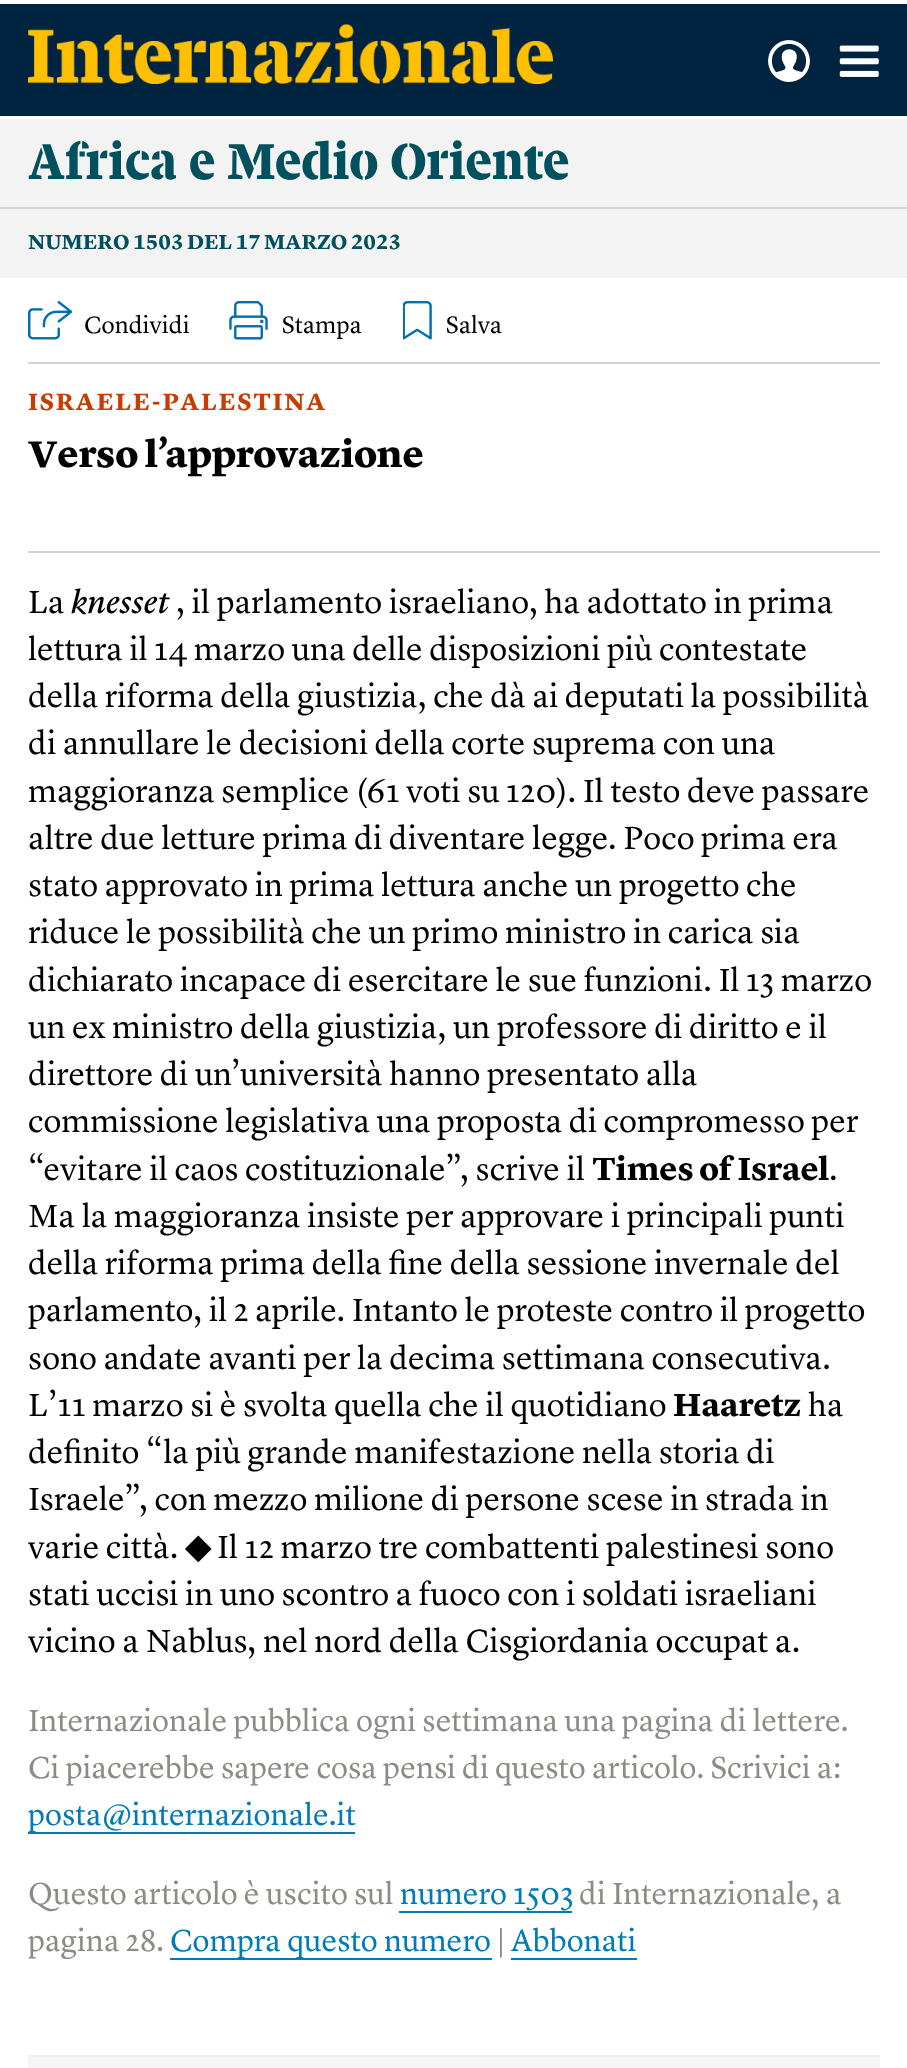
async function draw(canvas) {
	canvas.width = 907;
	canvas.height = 2068;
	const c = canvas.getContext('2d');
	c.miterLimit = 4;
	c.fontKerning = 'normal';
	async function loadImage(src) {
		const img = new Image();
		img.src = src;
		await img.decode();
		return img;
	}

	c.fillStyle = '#fff';
	c.fillRect(0, 0, 907, 2068);
	c.fillStyle = '#002440';
	c.fillRect(0, 4, 907, 112);
	c.drawImage(await loadImage('img1.png'), 28, 24, 525, 60);
	c.drawImage(await loadImage('img2.png'), 768, 40, 42, 42);
	c.drawImage(await loadImage('img3.png'), 839, 45, 40, 32);
	c.fillStyle = '#f3f3f3';
	c.fillRect(0, 119, 907, 159);
	c.font = '52.5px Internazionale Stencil';
	c.fillStyle = '#00505d';
	c.fillText('Africa e Medio Oriente', 28, 179);
	c.fillStyle = '#d4d1d1';
	c.fillRect(0, 207, 907, 2);
	c.font = 'bold 21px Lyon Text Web';
	c.fillStyle = '#00505d';
	c.fillText('NUMERO 1503 DEL 17 MARZO 2023', 28, 249);
	c.fillStyle = '#d4d1d1';
	c.fillRect(28, 362, 852, 2);
	c.drawImage(await loadImage('img4.png'), 28, 301, 44, 39);
	c.font = '24.5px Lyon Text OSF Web';
	c.fillStyle = '#000';
	c.fillText('Condividi', 84, 333);
	c.drawImage(await loadImage('img5.png'), 229, 301, 39, 39);
	c.fillText('Stampa', 282, 333);
	c.drawImage(await loadImage('img6.png'), 403, 301, 29, 39);
	c.fillText('Salva', 446, 333);
	c.letterSpacing = '1.75px';
	c.font = 'bold 24.5px Lyon Text OSF Web';
	c.fillStyle = '#c83c00';
	c.fillText('ISRAELE-PALESTINA', 28, 410);
	c.fillStyle = '#d4d1d1';
	c.fillRect(28, 551, 852, 2);
	c.letterSpacing = '0px';
	c.font = '900 38.5px Lyon Text OSF Web';
	c.fillStyle = '#000';
	c.fillText('Verso l’approvazione', 28, 467);
	c.font = '33.25px Lyon Text OSF Web';
	c.fillText('La', 28, 613);
	c.font = 'italic 33.25px Lyon Text OSF Web';
	c.fillText('knesset', 71, 613);
	c.font = '33.25px Lyon Text OSF Web';
	for (const [text, x, y] of [
		[', il parlamento israeliano, ha adottato in prima', 176, 613],
		['lettura il 14 marzo una delle disposizioni più contestate', 28, 660],
		['della riforma della giustizia, che dà ai deputati la possibilità', 28, 707],
		['di annullare le decisioni della corte suprema con una', 28, 754],
		['maggioranza semplice (61 voti su 120). Il testo deve passare', 28, 802],
		['altre due letture prima di diventare legge. Poco prima era', 28, 849],
		['stato approvato in prima lettura anche un progetto che', 28, 896],
		['riduce le possibilità che un primo ministro in carica sia', 28, 943],
		['dichiarato incapace di esercitare le sue funzioni. Il 13 marzo', 28, 991],
		['un ex ministro della giustizia, un professore di diritto e il', 28, 1038],
		['direttore di un’università hanno presentato alla', 28, 1085],
		['commissione legislativa una proposta di compromesso per', 28, 1132],
		['“evitare il caos costituzionale”, scrive il', 28, 1180],
	]) {
		c.fillText(text, x, y);
	}
	c.font = 'bold 33.25px Lyon Text OSF Web';
	c.fillText('Times of Israel', 592, 1180);
	c.font = '33.25px Lyon Text OSF Web';
	for (const [text, x, y] of [
		['.', 829, 1180],
		['Ma la maggioranza insiste per approvare i principali punti', 28, 1227],
		['della riforma prima della fine della sessione invernale del', 28, 1274],
		['parlamento, il 2 aprile. Intanto le proteste contro il progetto', 28, 1321],
		['sono andate avanti per la decima settimana consecutiva.', 28, 1369],
		['L’11 marzo si è svolta quella che il quotidiano', 28, 1416],
	]) {
		c.fillText(text, x, y);
	}
	c.font = 'bold 33.25px Lyon Text OSF Web';
	c.fillText('Haaretz', 673, 1416);
	c.font = '33.25px Lyon Text OSF Web';
	for (const [text, x, y] of [
		['ha', 808, 1416],
		['definito “la più grande manifestazione nella storia di', 28, 1463],
		['Israele”, con mezzo milione di persone scese in strada in', 28, 1510],
		['varie città.', 28, 1558],
	]) {
		c.fillText(text, x, y);
	}
	c.font = 'bold 33.25px DejaVu Sans';
	c.fillText('◆', 185, 1558);
	c.font = '33.25px Lyon Text OSF Web';
	for (const [text, x, y] of [
		['Il 12 marzo tre combattenti palestinesi sono', 217, 1558],
		['stati uccisi in uno scontro a fuoco con i soldati israeliani', 28, 1605],
		['vicino a Nablus, nel nord della Cisgiordania occupat a.', 28, 1652],
	]) {
		c.fillText(text, x, y);
	}
	c.font = '31.55px Lyon Text OSF Web';
	c.fillStyle = '#8c8c87';
	c.fillText('Internazionale pubblica ogni settimana una pagina di lettere.', 28, 1731);
	c.fillText('Ci piacerebbe sapere cosa pensi di questo articolo. Scrivici a:', 28, 1778);
	c.fillStyle = '#007bb5';
	c.fillRect(28, 1832, 327, 2);
	c.fillText('posta@internazionale.it', 28, 1825);
	c.fillStyle = '#8c8c87';
	c.fillText('Questo articolo è uscito sul', 28, 1904);
	c.fillStyle = '#007bb5';
	c.fillText('numero 1503', 400, 1904);
	c.fillRect(399, 1911, 173, 2);
	c.fillStyle = '#8c8c87';
	c.fillText('di Internazionale, a', 579, 1904);
	c.fillText('pagina 28.', 28, 1951);
	c.fillStyle = '#007bb5';
	c.fillRect(170, 1958, 322, 2);
	c.fillText('Compra questo numero', 170, 1951);
	c.fillStyle = '#8c8c87';
	c.fillText('|', 497, 1951);
	c.fillStyle = '#007bb5';
	c.fillText('Abbonati', 511, 1951);
	for (const [x, y, w, h, color] of [
		[511, 1958, 126, 2, '#007bb5'],
		[28, 2057, 852, 11, '#f5f5f5'],
		[28, 2055, 852, 2, '#f1f1f1'],
	]) {
		c.fillStyle = color;
		c.fillRect(x, y, w, h);
	}
}

draw(document.querySelector('canvas'));
